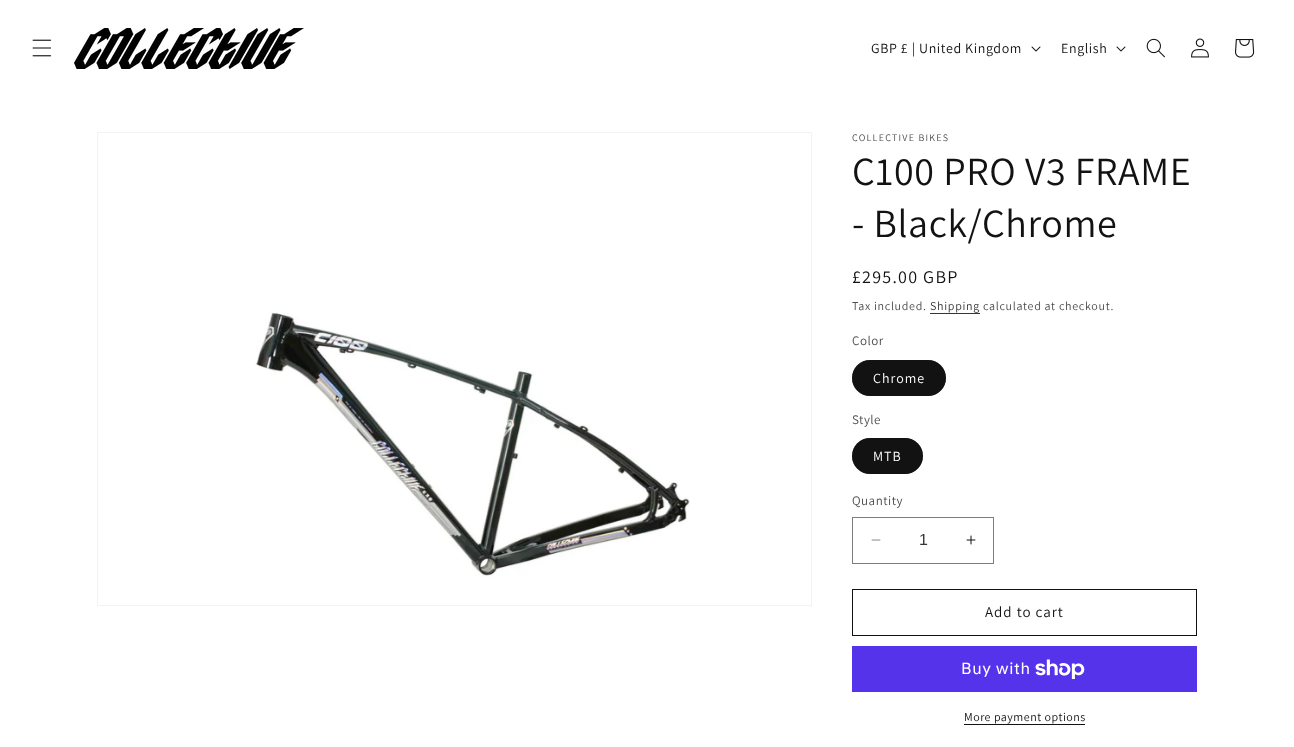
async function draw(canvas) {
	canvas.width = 1294;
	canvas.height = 747;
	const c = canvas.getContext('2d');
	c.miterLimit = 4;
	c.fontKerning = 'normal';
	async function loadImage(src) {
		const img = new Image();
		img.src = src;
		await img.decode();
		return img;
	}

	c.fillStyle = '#fff';
	c.fillRect(0, 0, 1294, 747);
	c.drawImage(await loadImage('img1.png'), 32, 39, 20, 18);
	c.drawImage(await loadImage('img2.png'), 74, 28, 230, 41);
	c.letterSpacing = '0.6px';
	c.font = '14px Assistant';
	c.fillStyle = '#121212';
	c.fillText('GBP £ | United Kingdom', 871, 53);
	c.drawImage(await loadImage('img3.png'), 1031, 46, 10, 6);
	c.fillText('English', 1061, 53);
	c.drawImage(await loadImage('img3.png'), 1116, 46, 10, 6);
	c.drawImage(await loadImage('img4.png'), 1146, 38, 19, 20);
	c.drawImage(await loadImage('img5.png'), 1191, 38, 18, 20);
	c.drawImage(await loadImage('img6.png'), 1235, 39, 20, 19);
	c.strokeStyle = '#f3f3f3';
	c.strokeRect(97.5, 132.5, 714, 473);
	c.drawImage(await loadImage('img7.png'), 254, 312, 436, 265);
	c.letterSpacing = '1.25px';
	c.font = '10px Assistant';
	c.fillStyle = '#4d4d4d';
	c.fillText('COLLECTIVE BIKES', 852, 141);
	c.letterSpacing = '0.6px';
	c.font = '40px Assistant';
	c.fillStyle = '#121212';
	c.fillText('C100 PRO V3 FRAME', 852, 185);
	c.fillText('- Black/Chrome', 852, 237);
	c.letterSpacing = '1.25px';
	c.font = '18px Assistant';
	c.fillText('£295.00 GBP', 852, 283);
	c.letterSpacing = '0.7px';
	c.font = '12px Assistant';
	c.fillStyle = '#4d4d4d';
	c.fillText('Tax included.', 852, 310);
	c.fillStyle = '#363636';
	c.fillText('Shipping', 930, 310);
	c.fillRect(930, 313, 50, 1);
	c.fillStyle = '#4d4d4d';
	c.fillText('calculated at checkout.', 983, 310);
	c.letterSpacing = '0.5px';
	c.font = '13px Assistant';
	c.fillText('Color', 852, 345);
	c.fillStyle = '#121212';
	c.beginPath();
	c.roundRect(852, 360, 94, 36, 18);
	c.fill();
	c.beginPath();
	c.roundRect(852.5, 360.5, 93, 35, 17.5);
	c.strokeStyle = '#1212128c';
	c.stroke();
	c.letterSpacing = '1px';
	c.font = '14px Assistant';
	c.fillStyle = '#fff';
	c.fillText('Chrome', 873, 383);
	c.letterSpacing = '0.5px';
	c.font = '13px Assistant';
	c.fillStyle = '#4d4d4d';
	c.fillText('Style', 852, 424);
	c.fillStyle = '#121212';
	c.beginPath();
	c.roundRect(852, 438, 71, 36, 18);
	c.fill();
	c.beginPath();
	c.roundRect(852.5, 438.5, 70, 35, 17.5);
	c.stroke();
	c.letterSpacing = '1px';
	c.font = '14px Assistant';
	c.fillStyle = '#fff';
	c.fillText('MTB', 873, 461);
	c.letterSpacing = '0.5px';
	c.font = '13px Assistant';
	c.fillStyle = '#4d4d4d';
	c.fillText('Quantity', 852, 505);
	c.drawImage(await loadImage('img8.png'), 871, 539, 10, 2);
	c.drawImage(await loadImage('img9.png'), 966, 535, 10, 10);
	c.strokeStyle = '#7d7d7d';
	c.strokeRect(852.5, 517.5, 141, 46);
	c.letterSpacing = '0px';
	c.font = '16px Liberation Sans';
	c.fillStyle = '#363636';
	c.fillText('1', 919, 545);
	c.strokeStyle = '#121212';
	c.strokeRect(852.5, 589.5, 344, 46);
	c.letterSpacing = '1px';
	c.font = '15px Assistant';
	c.fillStyle = '#121212';
	c.fillText('Add to cart', 985, 617);
	c.fillStyle = '#5433eb';
	c.fillRect(852, 646, 345, 46);
	c.letterSpacing = '0.6px';
	c.font = '16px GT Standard';
	c.fillStyle = '#fff';
	c.fillText('Buy with', 961, 674);
	c.drawImage(await loadImage('img10.png'), 1035, 659, 50, 20);
	c.letterSpacing = '0.5px';
	c.font = '12px Assistant';
	c.fillStyle = '#121212';
	c.fillText('More payment options', 964, 721);
	c.fillRect(964, 724, 121, 1);
}

draw(document.querySelector('canvas'));
